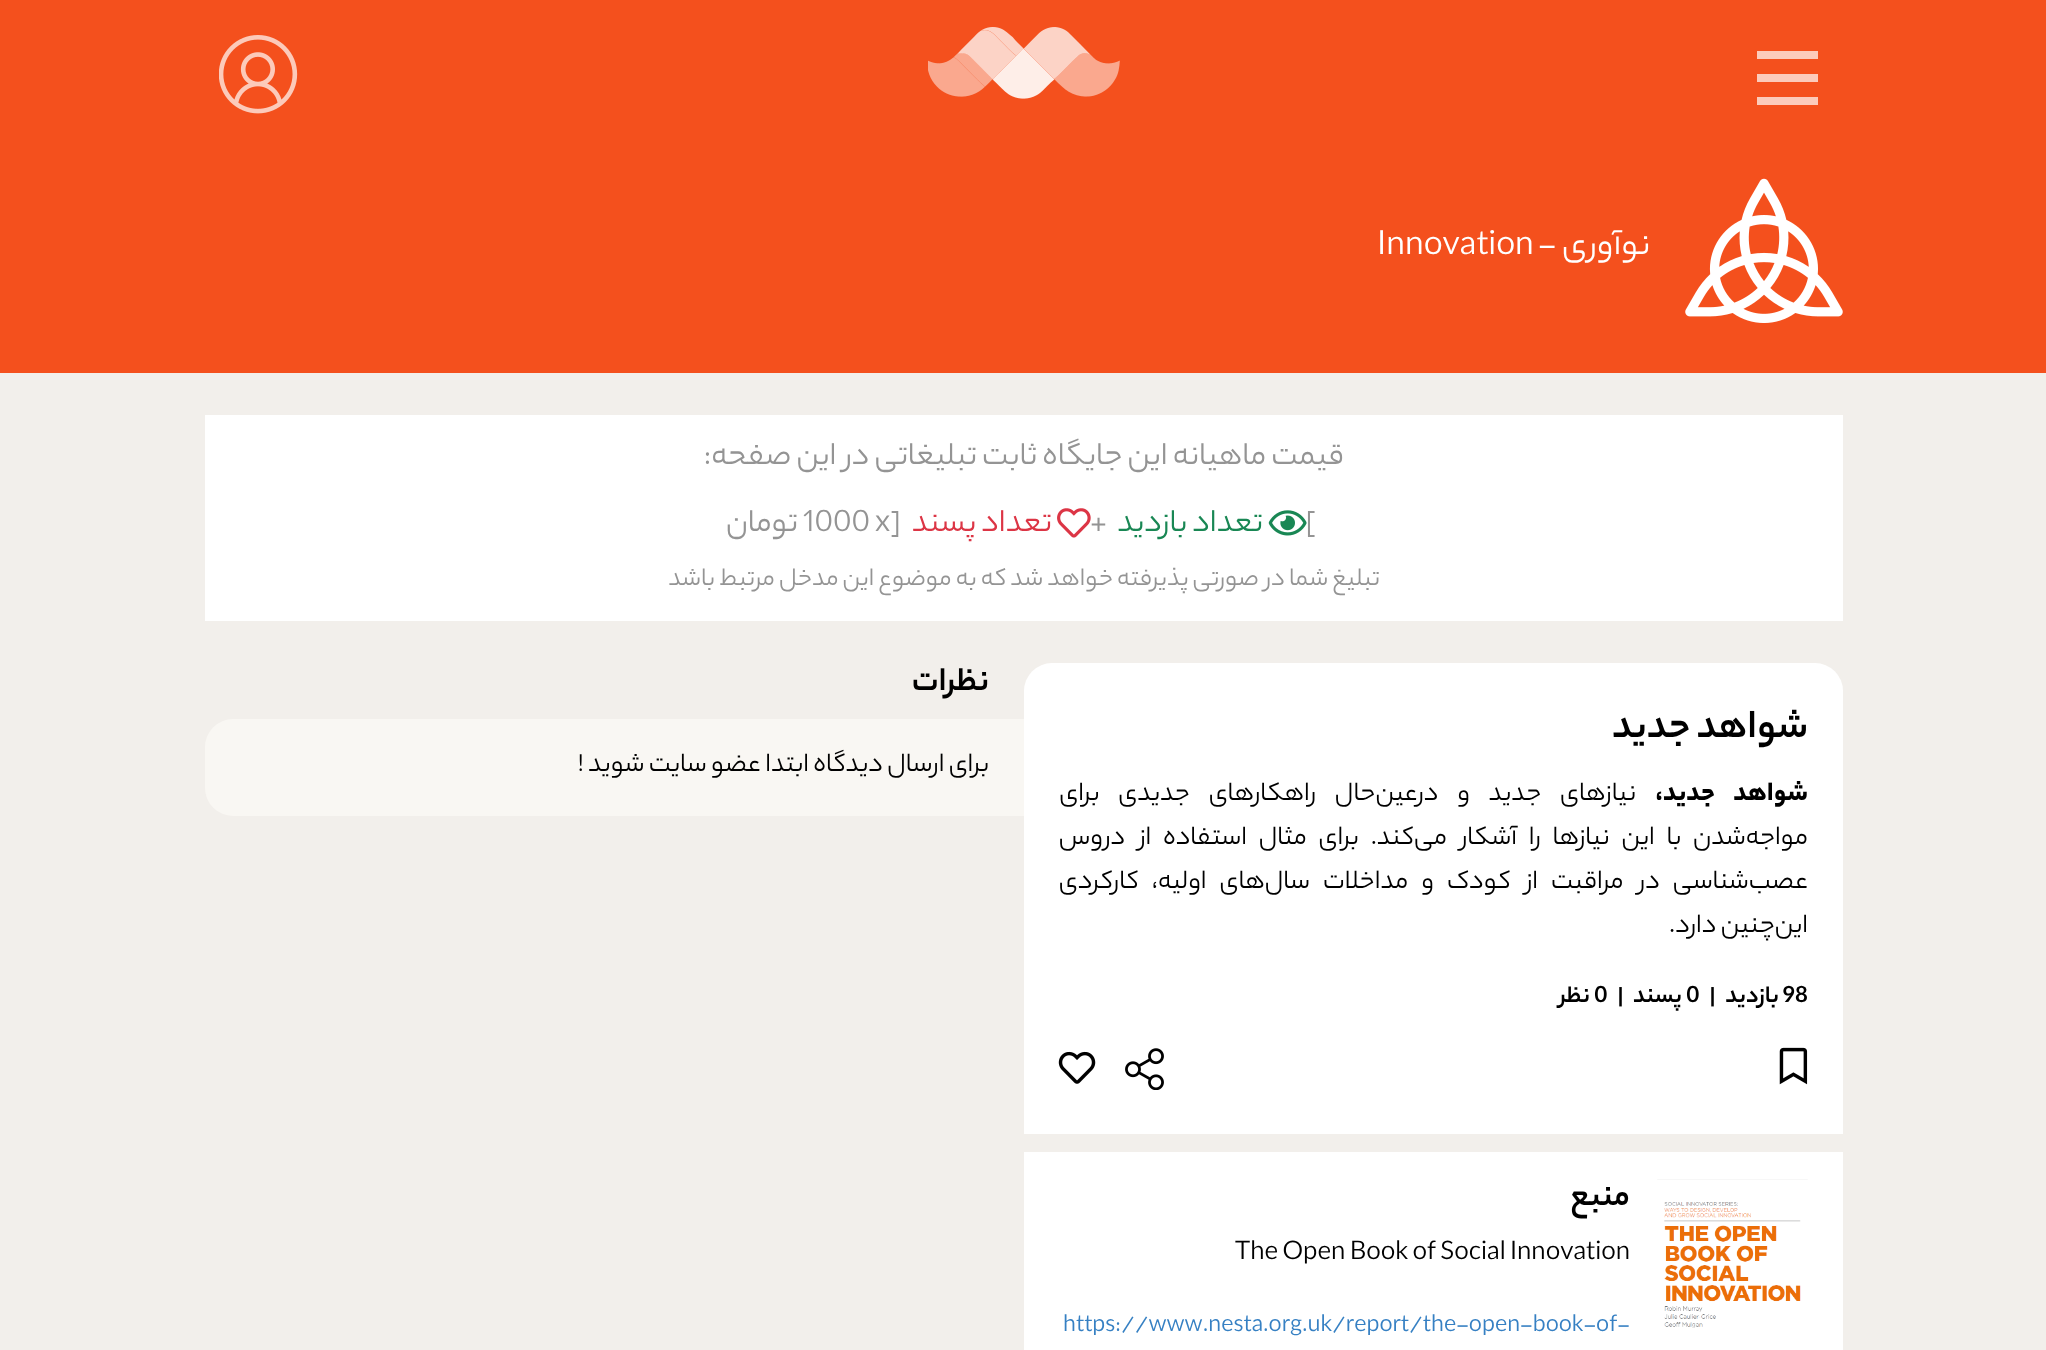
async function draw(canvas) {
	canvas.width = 2046;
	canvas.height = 1350;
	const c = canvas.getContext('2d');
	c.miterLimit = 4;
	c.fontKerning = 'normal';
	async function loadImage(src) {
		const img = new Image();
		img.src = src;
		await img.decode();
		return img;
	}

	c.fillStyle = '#f2efeb';
	c.fillRect(0, 0, 2046, 1350);
	for (const [x, y, w, h, color] of [
		[0, 0, 2046, 373, '#f4501d'],
		[1757, 51, 61, 8, '#fccbbb'],
		[1757, 74, 61, 8, '#fccbbb'],
		[1757, 97, 61, 8, '#fccbbb'],
	]) {
		c.fillStyle = color;
		c.fillRect(x, y, w, h);
	}
	c.drawImage(await loadImage('img1.png'), 928, 27, 192, 72);
	c.drawImage(await loadImage('img2.png'), 219, 35, 79, 79);
	c.drawImage(await loadImage('img3.png'), 1685, 178, 158, 145);
	c.direction = 'rtl';
	c.font = '36.5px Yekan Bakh';
	c.fillStyle = '#fff';
	c.fillText('نوآوری -', 1650, 254);
	c.direction = 'ltr';
	c.fillText('Innovation', 1377, 254);
	c.fillRect(205, 415, 1638, 206);
	c.direction = 'rtl';
	c.font = '33.6px Yekan Bakh';
	c.fillStyle = '#949494';
	c.fillText('قیمت ماهیانه این جایگاه ثابت تبلیغاتی در این صفحه:', 1344, 464);
	c.direction = 'ltr';
	c.fillText('[', 1306, 531);
	c.drawImage(await loadImage('img4.png'), 1268, 510, 39, 26);
	c.direction = 'rtl';
	c.fillStyle = '#198754';
	c.fillText('تعداد بازدید', 1263, 531);
	c.direction = 'ltr';
	c.fillStyle = '#949494';
	c.fillText('+', 1090, 531);
	c.drawImage(await loadImage('img5.png'), 1057, 508, 34, 30);
	c.direction = 'rtl';
	c.fillStyle = '#dc3545';
	c.fillText('تعداد پسند', 1052, 531);
	c.direction = 'ltr';
	c.fillStyle = '#949494';
	c.fillText('x]', 875, 531);
	c.fillText('1000', 803, 531);
	c.direction = 'rtl';
	c.fillText('تومان', 798, 531);
	c.font = '26.6px Yekan Bakh';
	c.fillText('تبلیغ شما در صورتی پذیرفته خواهد شد که به موضوع این مدخل مرتبط', 1380, 585);
	c.fillText('باشد', 715, 585);
	c.fillStyle = '#fff';
	c.beginPath();
	c.roundRect(1024, 663, 819, 471, [28, 28, 0, 0]);
	c.fill();
	c.font = 'bold 42px Yekan Bakh';
	c.fillStyle = '#000';
	c.fillText('شواهد جدید', 1808, 737);
	c.wordSpacing = '14.5px';
	c.font = '900 28px Yekan Bakh';
	c.fillText('شواهد جدید،', 1808, 800);
	c.font = '28px Yekan Bakh';
	c.fillText('نیازهای جدید و درعین‌حال راهکارهای جدیدی برای', 1636, 800);
	c.wordSpacing = '7.5px';
	c.fillText('مواجه‌شدن با این نیازها را آشکار می‌کند. برای مثال استفاده از دروس', 1808, 844);
	c.wordSpacing = '8.75px';
	c.fillText('عصب‌شناسی در مراقبت از کودک و مداخلات سال‌های اولیه، کارکردی', 1808, 888);
	c.wordSpacing = '0px';
	c.fillText('این‌چنین دارد.', 1808, 932);
	c.direction = 'ltr';
	c.font = 'bold 25.2px Yekan Bakh';
	c.fillText('98', 1783, 1002);
	c.direction = 'rtl';
	c.fillText('بازدید', 1779, 1002);
	c.direction = 'ltr';
	c.fillText('|', 1710, 1002);
	c.fillText('0', 1686, 1002);
	c.direction = 'rtl';
	c.fillText('پسند', 1682, 1002);
	c.direction = 'ltr';
	c.fillText('|', 1618, 1002);
	c.fillText('0', 1594, 1002);
	c.direction = 'rtl';
	c.fillText('نظر', 1590, 1002);
	c.drawImage(await loadImage('img6.png'), 1779, 1047, 29, 38);
	c.drawImage(await loadImage('img7.png'), 1125, 1048, 39, 42);
	c.drawImage(await loadImage('img8.png'), 1058, 1051, 38, 33);
	c.fillStyle = '#fff';
	c.fillRect(1024, 1152, 819, 198);
	c.drawImage(await loadImage('img9.png'), 1657, 1179, 151, 149);
	c.font = 'bold 35px Yekan Bakh';
	c.fillStyle = '#000';
	c.fillText('منبع', 1630, 1205);
	c.direction = 'ltr';
	c.font = '28px Yekan Bakh';
	c.fillText('The Open Book of Social Innovation', 1235, 1259);
	c.font = '25.2px Yekan Bakh';
	c.fillStyle = '#3680c3';
	c.fillText('https://www.nesta.org.uk/report/the-open-book-of-', 1063, 1331);
	c.direction = 'rtl';
	c.font = 'bold 35px Yekan Bakh';
	c.fillStyle = '#000';
	c.fillText('نظرات', 989, 690);
	c.fillStyle = '#f9f7f3';
	c.beginPath();
	c.roundRect(205, 719, 819, 97, [28, 0, 0, 28]);
	c.fill();
	c.font = '28px Yekan Bakh';
	c.fillStyle = '#000';
	c.fillText('برای ارسال دیدگاه ابتدا عضو سایت شوید !', 989, 771);
}

draw(document.querySelector('canvas'));
